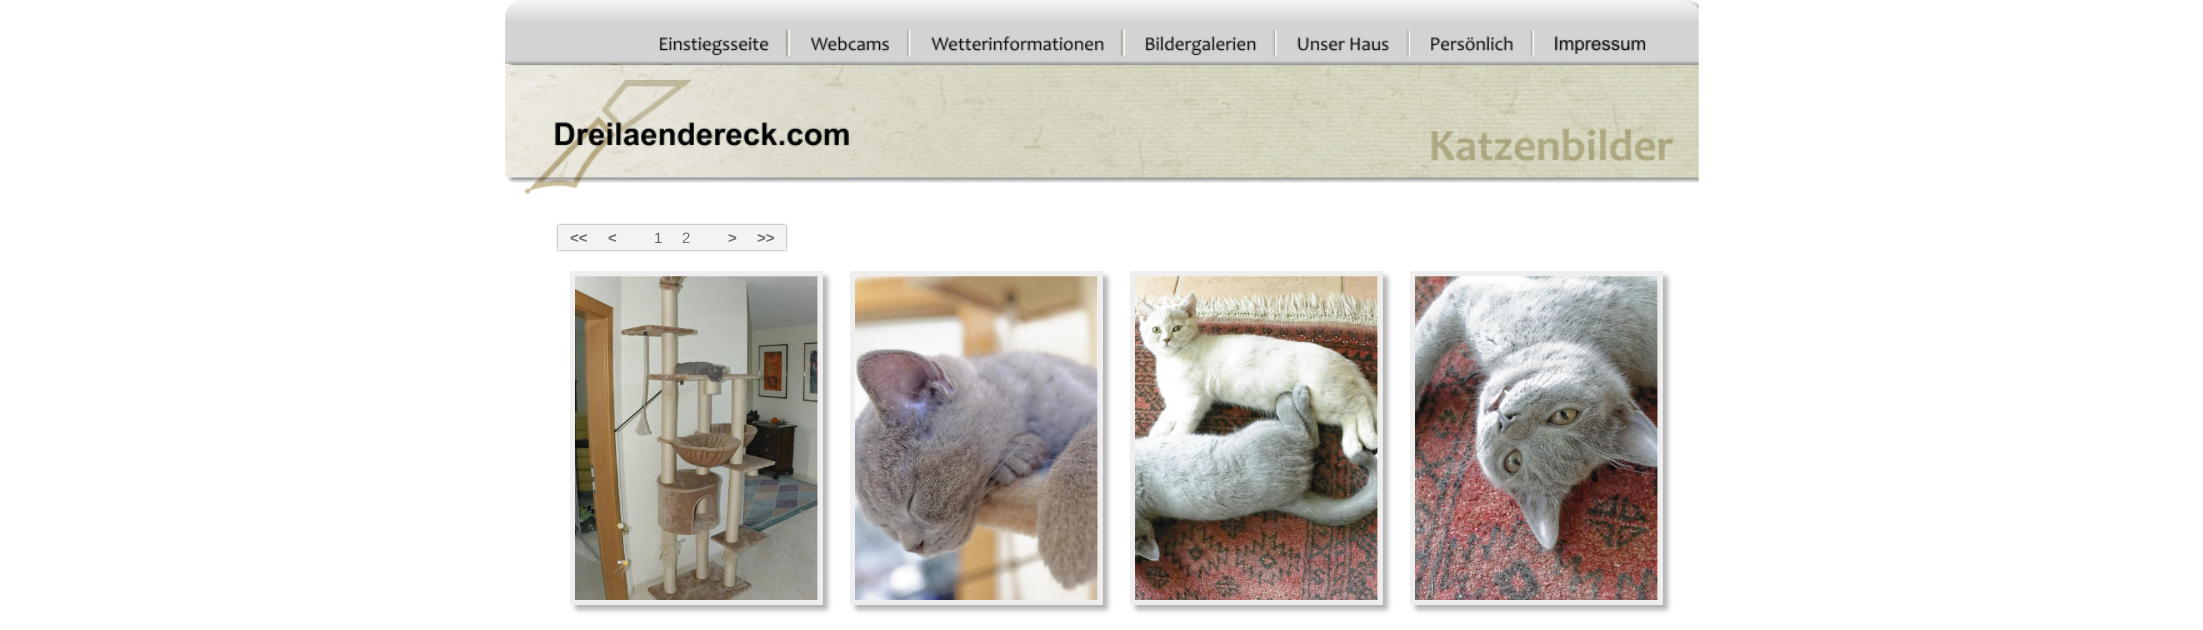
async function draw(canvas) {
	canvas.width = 2203;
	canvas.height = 630;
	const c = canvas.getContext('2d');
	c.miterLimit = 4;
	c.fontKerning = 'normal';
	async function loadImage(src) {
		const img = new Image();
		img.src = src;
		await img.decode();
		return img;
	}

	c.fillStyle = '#fff';
	c.fillRect(0, 0, 2203, 630);
	c.drawImage(await loadImage('img1.png'), 505, 0, 1194, 184);
	c.drawImage(await loadImage('img2.png'), 639, 30, 152, 32);
	c.drawImage(await loadImage('img3.png'), 790, 30, 121, 32);
	c.drawImage(await loadImage('img4.png'), 912, 30, 214, 32);
	c.drawImage(await loadImage('img5.png'), 1125, 30, 153, 32);
	c.drawImage(await loadImage('img6.png'), 1278, 30, 133, 32);
	c.drawImage(await loadImage('img7.png'), 1410, 30, 125, 32);
	c.drawImage(await loadImage('img8.png'), 1536, 36, 131, 26);
	c.drawImage(await loadImage('img9.png'), 525, 80, 324, 114);
	c.drawImage(await loadImage('img10.png'), 1431, 128, 243, 34);
	c.fillStyle = '#646464';
	c.filter = 'blur(1px)';
	c.beginPath();
	c.rect(558, 225, 228, 25);
	c.fill();
	c.filter = 'none';
	c.fillStyle = '#f3f3f3';
	c.fillRect(558, 225, 228, 25);
	c.font = 'bold 15px Liberation Sans';
	c.fillStyle = '#707070';
	c.fillText('<<', 570, 243);
	c.fillText('<', 608, 243);
	c.font = '15px Liberation Sans';
	c.fillStyle = '#646464';
	c.fillText('1', 654, 243);
	c.fillStyle = '#707070';
	c.fillText('2', 682, 243);
	c.font = 'bold 15px Liberation Sans';
	c.fillText('>', 728, 243);
	c.fillText('>>', 757, 243);
	c.save();
	c.beginPath();
	c.moveTo(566, 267);
	c.lineTo(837, 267);
	c.lineTo(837, 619);
	c.lineTo(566, 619);
	c.closePath();
	c.moveTo(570, 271);
	c.lineTo(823, 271);
	c.lineTo(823, 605);
	c.lineTo(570, 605);
	c.closePath();
	c.clip('evenodd');
	c.fillStyle = '#0303034d';
	c.filter = 'blur(2.5px)';
	c.beginPath();
	c.rect(575, 276, 253, 334);
	c.fill();
	c.filter = 'none';
	c.restore();
	c.strokeStyle = '#eee';
	c.lineWidth = 5;
	c.strokeRect(572.5, 273.5, 248, 329);
	c.drawImage(await loadImage('img11.png'), 575, 276, 243, 324);
	c.save();
	c.beginPath();
	c.moveTo(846, 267);
	c.lineTo(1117, 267);
	c.lineTo(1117, 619);
	c.lineTo(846, 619);
	c.closePath();
	c.moveTo(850, 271);
	c.lineTo(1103, 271);
	c.lineTo(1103, 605);
	c.lineTo(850, 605);
	c.closePath();
	c.clip('evenodd');
	c.fillStyle = '#0303034d';
	c.filter = 'blur(2.5px)';
	c.beginPath();
	c.rect(855, 276, 253, 334);
	c.fill();
	c.filter = 'none';
	c.restore();
	c.strokeRect(852.5, 273.5, 248, 329);
	c.drawImage(await loadImage('img12.png'), 855, 276, 243, 324);
	c.save();
	c.beginPath();
	c.moveTo(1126, 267);
	c.lineTo(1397, 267);
	c.lineTo(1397, 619);
	c.lineTo(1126, 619);
	c.closePath();
	c.moveTo(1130, 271);
	c.lineTo(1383, 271);
	c.lineTo(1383, 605);
	c.lineTo(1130, 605);
	c.closePath();
	c.clip('evenodd');
	c.fillStyle = '#0303034d';
	c.filter = 'blur(2.5px)';
	c.beginPath();
	c.rect(1135, 276, 253, 334);
	c.fill();
	c.filter = 'none';
	c.restore();
	c.strokeRect(1132.5, 273.5, 248, 329);
	c.drawImage(await loadImage('img13.png'), 1135, 276, 243, 324);
	c.save();
	c.beginPath();
	c.moveTo(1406, 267);
	c.lineTo(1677, 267);
	c.lineTo(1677, 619);
	c.lineTo(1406, 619);
	c.closePath();
	c.moveTo(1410, 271);
	c.lineTo(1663, 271);
	c.lineTo(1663, 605);
	c.lineTo(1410, 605);
	c.closePath();
	c.clip('evenodd');
	c.fillStyle = '#0303034d';
	c.filter = 'blur(2.5px)';
	c.beginPath();
	c.rect(1415, 276, 253, 334);
	c.fill();
	c.filter = 'none';
	c.restore();
	c.strokeRect(1412.5, 273.5, 248, 329);
	c.drawImage(await loadImage('img14.png'), 1415, 276, 243, 324);
}

draw(document.querySelector('canvas'));
